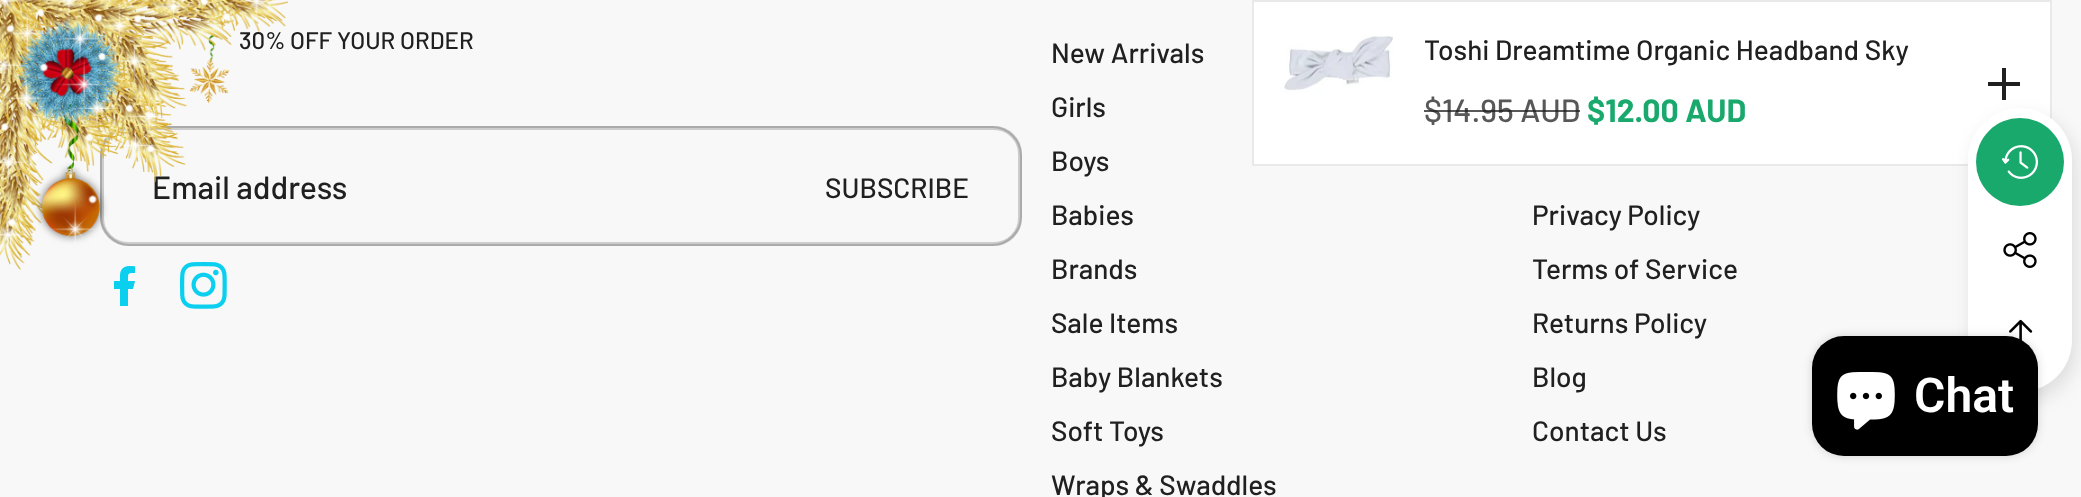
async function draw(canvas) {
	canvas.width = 2081;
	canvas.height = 497;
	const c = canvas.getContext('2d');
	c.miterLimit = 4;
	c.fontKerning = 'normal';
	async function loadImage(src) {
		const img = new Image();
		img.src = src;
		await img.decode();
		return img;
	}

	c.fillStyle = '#f8f8f8';
	c.fillRect(0, 0, 2081, 497);
	c.font = '500 24px Barlow';
	c.fillStyle = '#202020';
	c.fillText('30% OFF YOUR ORDER', 239, 49);
	c.beginPath();
	c.roundRect(102, 128, 918, 116, 26);
	c.strokeStyle = '#cdcdcd';
	c.lineWidth = 4;
	c.stroke();
	c.beginPath();
	c.roundRect(101, 127, 920, 118, 29);
	c.strokeStyle = '#20202033';
	c.lineWidth = 2;
	c.stroke();
	c.font = '500 32px Barlow';
	c.fillText('Email address', 152, 199);
	c.drawImage(await loadImage('img2.png'), 114, 266, 21, 40);
	c.drawImage(await loadImage('img3.png'), 180, 262, 47, 47);
	c.drawImage(await loadImage('img1.png'), 0, 0, 288, 270);
	c.font = '500 28px Barlow';
	for (const [text, x, y] of [
		['SUBSCRIBE', 825, 198],
		['New Arrivals', 1051, 63],
		['Girls', 1051, 117],
		['Boys', 1051, 171],
		['Babies', 1051, 225],
		['Brands', 1051, 279],
		['Sale Items', 1051, 333],
		['Baby Blankets', 1051, 387],
		['Soft Toys', 1051, 441],
		['Wraps & Swaddles', 1051, 495],
		['Privacy Policy', 1532, 225],
		['Terms of Service', 1532, 279],
		['Returns Policy', 1532, 333],
		['Blog', 1532, 387],
		['Contact Us', 1532, 441],
	]) {
		c.fillText(text, x, y);
	}
	c.fillStyle = '#fff';
	c.beginPath();
	c.rect(1253, 1, 798, 164);
	c.fill();
	c.strokeStyle = '#e9e9e9';
	c.stroke();
	c.drawImage(await loadImage('img4.png'), 1284, 36, 109, 57);
	c.fillStyle = '#202020';
	c.fillText('Toshi Dreamtime Organic Headband Sky', 1424, 60);
	c.font = '500 32px Barlow';
	c.fillStyle = '#585858';
	c.fillText('$14.95 AUD', 1424, 122);
	c.fillStyle = '#202020bf';
	c.fillRect(1424, 110, 156, 2);
	c.font = 'bold 32px Barlow';
	c.fillStyle = '#19a96d';
	c.fillText('$12.00 AUD', 1587, 122);
	c.fillStyle = '#202020';
	c.fillRect(2002, 68, 4, 32);
	c.fillRect(1988, 82, 32, 4);
	c.fillStyle = '#b0adad59';
	c.filter = 'blur(9px)';
	c.beginPath();
	c.roundRect(1972, 116, 104, 284, 52);
	c.fill();
	c.filter = 'none';
	c.fillStyle = '#fff';
	c.beginPath();
	c.roundRect(1968, 108, 104, 284, 52);
	c.fill();
	c.fillStyle = '#19a96d';
	c.beginPath();
	c.arc(2020, 162, 44, 0, 2 * Math.PI);
	c.fill();
	c.drawImage(await loadImage('img5.png'), 2002, 145, 36, 34);
	c.drawImage(await loadImage('img6.png'), 2003, 232, 34, 36);
	c.drawImage(await loadImage('img7.png'), 2009, 319, 24, 22);
	c.fillStyle = '#00000026';
	c.filter = 'blur(5px)';
	c.beginPath();
	c.roundRect(1812, 336, 226, 120, 32);
	c.fill();
	c.filter = 'none';
	c.fillStyle = '#000';
	c.beginPath();
	c.roundRect(1812, 336, 226, 120, 32);
	c.fill();
	c.drawImage(await loadImage('img8.png'), 1837, 372, 58, 58);
	c.font = '600 48px Roboto';
	c.fillStyle = '#fff';
	c.fillText('Chat', 1914, 412);
}

draw(document.querySelector('canvas'));
